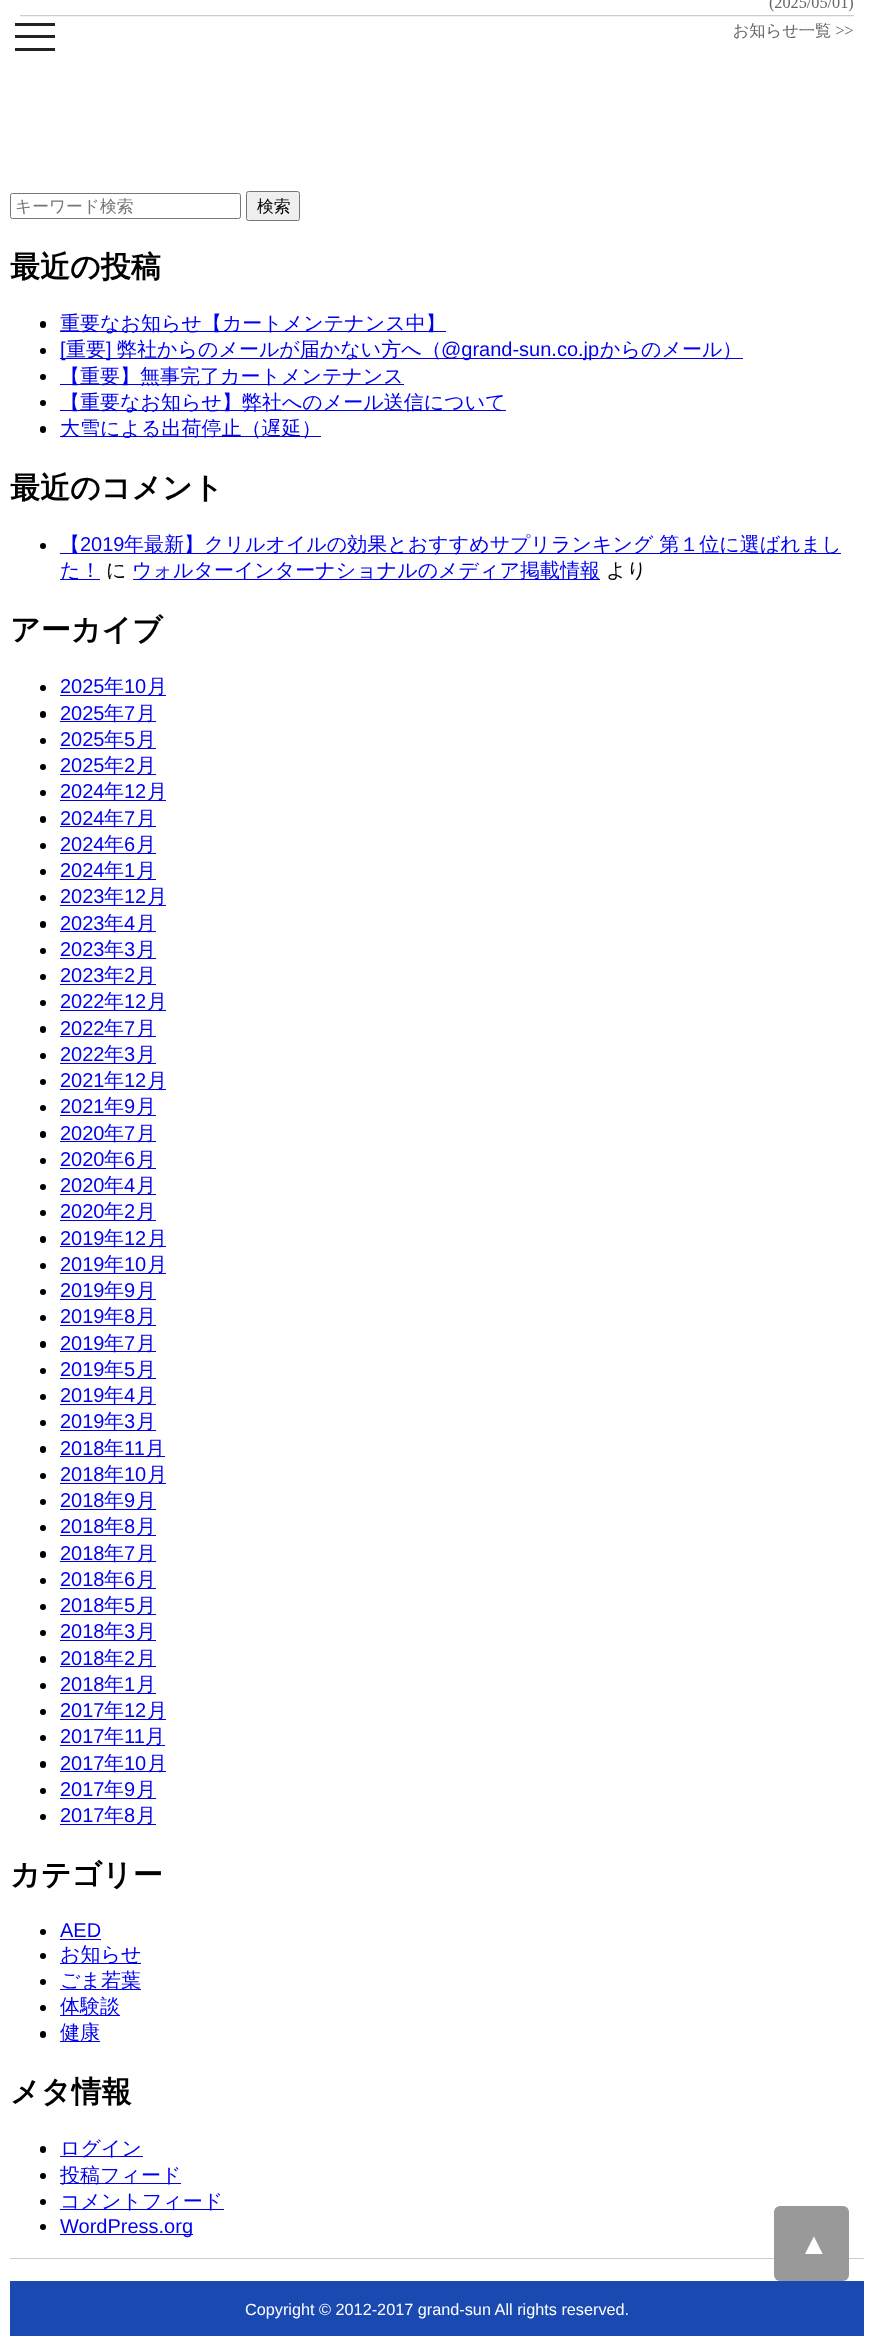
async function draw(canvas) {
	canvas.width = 873;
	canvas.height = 2336;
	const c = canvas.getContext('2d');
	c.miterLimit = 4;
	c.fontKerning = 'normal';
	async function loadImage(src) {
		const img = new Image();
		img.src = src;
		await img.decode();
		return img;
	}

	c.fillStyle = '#fff';
	c.fillRect(0, 0, 873, 2336);
	c.drawImage(await loadImage('img1.png'), 20, 0, 834, 39);
	for (const [x, y, w, h, color] of [
		[15, 35, 40, 3, '#222'],
		[15, 23, 40, 3, '#222'],
		[15, 48, 40, 3, '#222'],
	]) {
		c.fillStyle = color;
		c.fillRect(x, y, w, h);
	}
	c.beginPath();
	c.roundRect(10.5, 193.5, 230, 25, 2);
	c.strokeStyle = '#767676';
	c.stroke();
	c.font = '500 16.75px WenQuanYi Zen Hei';
	c.fillStyle = '#757575';
	c.fillText('キーワード検索', 15, 212);
	c.fillStyle = '#efefef';
	c.beginPath();
	c.roundRect(246.5, 191.5, 53, 29, 2);
	c.fill();
	c.stroke();
	c.fillStyle = '#000';
	c.fillText('検索', 257, 212);
	c.font = 'bold 30px WenQuanYi Zen Hei';
	c.fillText('最近の投稿', 10, 277);
	c.beginPath();
	c.roundRect(40, 321, 6, 7, 3);
	c.fill();
	c.fillStyle = '#00e';
	c.fillRect(60, 331, 386, 1);
	c.font = '500 20px WenQuanYi Zen Hei';
	c.fillText('重要なお知らせ【カートメンテナンス中】', 60, 330);
	c.fillStyle = '#000';
	c.beginPath();
	c.arc(43, 351, 3, 0, 2 * Math.PI);
	c.fill();
	c.fillStyle = '#00e';
	c.fillRect(60, 358, 683, 1);
	c.font = '20px Liberation Sans';
	c.fillText('[', 60, 356);
	c.font = '500 20px WenQuanYi Zen Hei';
	c.fillText('重要', 66, 356);
	c.font = '20px Liberation Sans';
	c.fillText(']', 106, 356);
	c.font = '500 20px WenQuanYi Zen Hei';
	c.fillText('弊社からのメールが届かない方へ（', 117, 356);
	c.font = '20px Liberation Sans';
	c.fillText('@grand-sun.co.jp', 441, 356);
	c.font = '500 20px WenQuanYi Zen Hei';
	c.fillText('からのメール）', 600, 356);
	c.fillStyle = '#000';
	c.beginPath();
	c.arc(43, 377, 3, 0, 2 * Math.PI);
	c.fill();
	c.fillStyle = '#00e';
	c.fillRect(60, 384, 344, 1);
	c.fillText('【重要】無事完了カートメンテナンス', 60, 383);
	c.fillStyle = '#000';
	c.beginPath();
	c.arc(43, 403, 3, 0, 2 * Math.PI);
	c.fill();
	c.fillStyle = '#00e';
	c.fillRect(60, 410, 446, 1);
	c.fillText('【重要なお知らせ】弊社へのメール送信について', 60, 409);
	c.fillStyle = '#000';
	c.beginPath();
	c.roundRect(40, 426, 6, 7, 3);
	c.fill();
	c.fillStyle = '#00e';
	c.fillRect(60, 436, 261, 1);
	c.fillText('大雪による出荷停止（遅延）', 60, 435);
	c.font = 'bold 30px WenQuanYi Zen Hei';
	c.fillStyle = '#000';
	c.fillText('最近のコメント', 10, 498);
	c.beginPath();
	c.arc(43, 546, 3, 0, 2 * Math.PI);
	c.fill();
	c.fillStyle = '#00e';
	c.fillRect(60, 553, 781, 1);
	c.font = '500 20px WenQuanYi Zen Hei';
	c.fillText('【', 60, 551);
	c.font = '20px Liberation Sans';
	c.fillText('2019', 80, 551);
	c.font = '500 20px WenQuanYi Zen Hei';
	c.fillText('年最新】クリルオイルの効果とおすすめサプリランキング 第１位に選ばれまし', 124, 551);
	c.fillRect(60, 579, 40, 1);
	c.fillText('た！', 60, 577);
	c.fillStyle = '#000';
	c.fillText('に', 106, 577);
	c.fillStyle = '#00e';
	c.fillRect(133, 579, 467, 1);
	c.fillText('ウォルターインターナショナルのメディア掲載情報', 132, 577);
	c.fillStyle = '#000';
	c.fillText('より', 606, 577);
	c.font = 'bold 30px WenQuanYi Zen Hei';
	c.fillText('アーカイブ', 10, 640);
	c.beginPath();
	c.arc(43, 688, 3, 0, 2 * Math.PI);
	c.fill();
	c.font = '20px Liberation Sans';
	c.fillStyle = '#00e';
	c.fillText('2025', 60, 693);
	c.fillRect(60, 695, 106, 1);
	c.font = '500 20px WenQuanYi Zen Hei';
	c.fillText('年', 104, 693);
	c.font = '20px Liberation Sans';
	c.fillText('10', 124, 693);
	c.font = '500 20px WenQuanYi Zen Hei';
	c.fillText('月', 147, 693);
	c.fillStyle = '#000';
	c.beginPath();
	c.roundRect(40, 711, 6, 7, 3);
	c.fill();
	c.font = '20px Liberation Sans';
	c.fillStyle = '#00e';
	c.fillText('2025', 60, 720);
	c.fillRect(60, 721, 96, 1);
	c.font = '500 20px WenQuanYi Zen Hei';
	c.fillText('年', 104, 720);
	c.font = '20px Liberation Sans';
	c.fillText('7', 124, 720);
	c.font = '500 20px WenQuanYi Zen Hei';
	c.fillText('月', 136, 720);
	c.fillStyle = '#000';
	c.beginPath();
	c.arc(43, 741, 3, 0, 2 * Math.PI);
	c.fill();
	c.font = '20px Liberation Sans';
	c.fillStyle = '#00e';
	c.fillText('2025', 60, 746);
	c.fillRect(60, 748, 96, 1);
	c.font = '500 20px WenQuanYi Zen Hei';
	c.fillText('年', 104, 746);
	c.font = '20px Liberation Sans';
	c.fillText('5', 124, 746);
	c.font = '500 20px WenQuanYi Zen Hei';
	c.fillText('月', 136, 746);
	c.fillStyle = '#000';
	c.beginPath();
	c.arc(43, 767, 3, 0, 2 * Math.PI);
	c.fill();
	c.font = '20px Liberation Sans';
	c.fillStyle = '#00e';
	c.fillText('2025', 60, 772);
	c.fillRect(60, 774, 96, 1);
	c.font = '500 20px WenQuanYi Zen Hei';
	c.fillText('年', 104, 772);
	c.font = '20px Liberation Sans';
	c.fillText('2', 124, 772);
	c.font = '500 20px WenQuanYi Zen Hei';
	c.fillText('月', 136, 772);
	c.fillStyle = '#000';
	c.beginPath();
	c.arc(43, 793, 3, 0, 2 * Math.PI);
	c.fill();
	c.font = '20px Liberation Sans';
	c.fillStyle = '#00e';
	c.fillText('2024', 60, 798);
	c.fillRect(60, 800, 106, 1);
	c.font = '500 20px WenQuanYi Zen Hei';
	c.fillText('年', 104, 798);
	c.font = '20px Liberation Sans';
	c.fillText('12', 124, 798);
	c.font = '500 20px WenQuanYi Zen Hei';
	c.fillText('月', 147, 798);
	c.fillStyle = '#000';
	c.beginPath();
	c.roundRect(40, 816, 6, 7, 3);
	c.fill();
	c.font = '20px Liberation Sans';
	c.fillStyle = '#00e';
	c.fillText('2024', 60, 825);
	c.fillRect(60, 826, 96, 1);
	c.font = '500 20px WenQuanYi Zen Hei';
	c.fillText('年', 104, 825);
	c.font = '20px Liberation Sans';
	c.fillText('7', 124, 825);
	c.font = '500 20px WenQuanYi Zen Hei';
	c.fillText('月', 136, 825);
	c.fillStyle = '#000';
	c.beginPath();
	c.arc(43, 846, 3, 0, 2 * Math.PI);
	c.fill();
	c.font = '20px Liberation Sans';
	c.fillStyle = '#00e';
	c.fillText('2024', 60, 851);
	c.fillRect(60, 853, 96, 1);
	c.font = '500 20px WenQuanYi Zen Hei';
	c.fillText('年', 104, 851);
	c.font = '20px Liberation Sans';
	c.fillText('6', 124, 851);
	c.font = '500 20px WenQuanYi Zen Hei';
	c.fillText('月', 136, 851);
	c.fillStyle = '#000';
	c.beginPath();
	c.arc(43, 872, 3, 0, 2 * Math.PI);
	c.fill();
	c.font = '20px Liberation Sans';
	c.fillStyle = '#00e';
	c.fillText('2024', 60, 877);
	c.fillRect(60, 879, 96, 1);
	c.font = '500 20px WenQuanYi Zen Hei';
	c.fillText('年', 104, 877);
	c.font = '20px Liberation Sans';
	c.fillText('1', 124, 877);
	c.font = '500 20px WenQuanYi Zen Hei';
	c.fillText('月', 136, 877);
	c.fillStyle = '#000';
	c.beginPath();
	c.arc(43, 898, 3, 0, 2 * Math.PI);
	c.fill();
	c.font = '20px Liberation Sans';
	c.fillStyle = '#00e';
	c.fillText('2023', 60, 903);
	c.fillRect(60, 905, 106, 1);
	c.font = '500 20px WenQuanYi Zen Hei';
	c.fillText('年', 104, 903);
	c.font = '20px Liberation Sans';
	c.fillText('12', 124, 903);
	c.font = '500 20px WenQuanYi Zen Hei';
	c.fillText('月', 147, 903);
	c.fillStyle = '#000';
	c.beginPath();
	c.roundRect(40, 921, 6, 7, 3);
	c.fill();
	c.font = '20px Liberation Sans';
	c.fillStyle = '#00e';
	c.fillText('2023', 60, 930);
	c.fillRect(60, 931, 96, 1);
	c.font = '500 20px WenQuanYi Zen Hei';
	c.fillText('年', 104, 930);
	c.font = '20px Liberation Sans';
	c.fillText('4', 124, 930);
	c.font = '500 20px WenQuanYi Zen Hei';
	c.fillText('月', 136, 930);
	c.fillStyle = '#000';
	c.beginPath();
	c.arc(43, 951, 3, 0, 2 * Math.PI);
	c.fill();
	c.font = '20px Liberation Sans';
	c.fillStyle = '#00e';
	c.fillText('2023', 60, 956);
	c.fillRect(60, 958, 96, 1);
	c.font = '500 20px WenQuanYi Zen Hei';
	c.fillText('年', 104, 956);
	c.font = '20px Liberation Sans';
	c.fillText('3', 124, 956);
	c.font = '500 20px WenQuanYi Zen Hei';
	c.fillText('月', 136, 956);
	c.fillStyle = '#000';
	c.beginPath();
	c.arc(43, 977, 3, 0, 2 * Math.PI);
	c.fill();
	c.font = '20px Liberation Sans';
	c.fillStyle = '#00e';
	c.fillText('2023', 60, 982);
	c.fillRect(60, 984, 96, 1);
	c.font = '500 20px WenQuanYi Zen Hei';
	c.fillText('年', 104, 982);
	c.font = '20px Liberation Sans';
	c.fillText('2', 124, 982);
	c.font = '500 20px WenQuanYi Zen Hei';
	c.fillText('月', 136, 982);
	c.fillStyle = '#000';
	c.beginPath();
	c.arc(43, 1003, 3, 0, 2 * Math.PI);
	c.fill();
	c.font = '20px Liberation Sans';
	c.fillStyle = '#00e';
	c.fillText('2022', 60, 1008);
	c.fillRect(60, 1010, 106, 1);
	c.font = '500 20px WenQuanYi Zen Hei';
	c.fillText('年', 104, 1008);
	c.font = '20px Liberation Sans';
	c.fillText('12', 124, 1008);
	c.font = '500 20px WenQuanYi Zen Hei';
	c.fillText('月', 147, 1008);
	c.fillStyle = '#000';
	c.beginPath();
	c.roundRect(40, 1026, 6, 7, 3);
	c.fill();
	c.font = '20px Liberation Sans';
	c.fillStyle = '#00e';
	c.fillText('2022', 60, 1035);
	c.fillRect(60, 1036, 96, 1);
	c.font = '500 20px WenQuanYi Zen Hei';
	c.fillText('年', 104, 1035);
	c.font = '20px Liberation Sans';
	c.fillText('7', 124, 1035);
	c.font = '500 20px WenQuanYi Zen Hei';
	c.fillText('月', 136, 1035);
	c.fillStyle = '#000';
	c.beginPath();
	c.arc(43, 1056, 3, 0, 2 * Math.PI);
	c.fill();
	c.font = '20px Liberation Sans';
	c.fillStyle = '#00e';
	c.fillText('2022', 60, 1061);
	c.fillRect(60, 1063, 96, 1);
	c.font = '500 20px WenQuanYi Zen Hei';
	c.fillText('年', 104, 1061);
	c.font = '20px Liberation Sans';
	c.fillText('3', 124, 1061);
	c.font = '500 20px WenQuanYi Zen Hei';
	c.fillText('月', 136, 1061);
	c.fillStyle = '#000';
	c.beginPath();
	c.arc(43, 1082, 3, 0, 2 * Math.PI);
	c.fill();
	c.font = '20px Liberation Sans';
	c.fillStyle = '#00e';
	c.fillText('2021', 60, 1087);
	c.fillRect(60, 1089, 106, 1);
	c.font = '500 20px WenQuanYi Zen Hei';
	c.fillText('年', 104, 1087);
	c.font = '20px Liberation Sans';
	c.fillText('12', 124, 1087);
	c.font = '500 20px WenQuanYi Zen Hei';
	c.fillText('月', 147, 1087);
	c.fillStyle = '#000';
	c.beginPath();
	c.arc(43, 1108, 3, 0, 2 * Math.PI);
	c.fill();
	c.font = '20px Liberation Sans';
	c.fillStyle = '#00e';
	c.fillText('2021', 60, 1113);
	c.fillRect(60, 1115, 96, 1);
	c.font = '500 20px WenQuanYi Zen Hei';
	c.fillText('年', 104, 1113);
	c.font = '20px Liberation Sans';
	c.fillText('9', 124, 1113);
	c.font = '500 20px WenQuanYi Zen Hei';
	c.fillText('月', 136, 1113);
	c.fillStyle = '#000';
	c.beginPath();
	c.roundRect(40, 1131, 6, 7, 3);
	c.fill();
	c.font = '20px Liberation Sans';
	c.fillStyle = '#00e';
	c.fillText('2020', 60, 1140);
	c.fillRect(60, 1141, 96, 1);
	c.font = '500 20px WenQuanYi Zen Hei';
	c.fillText('年', 104, 1140);
	c.font = '20px Liberation Sans';
	c.fillText('7', 124, 1140);
	c.font = '500 20px WenQuanYi Zen Hei';
	c.fillText('月', 136, 1140);
	c.fillStyle = '#000';
	c.beginPath();
	c.arc(43, 1161, 3, 0, 2 * Math.PI);
	c.fill();
	c.font = '20px Liberation Sans';
	c.fillStyle = '#00e';
	c.fillText('2020', 60, 1166);
	c.fillRect(60, 1168, 96, 1);
	c.font = '500 20px WenQuanYi Zen Hei';
	c.fillText('年', 104, 1166);
	c.font = '20px Liberation Sans';
	c.fillText('6', 124, 1166);
	c.font = '500 20px WenQuanYi Zen Hei';
	c.fillText('月', 136, 1166);
	c.fillStyle = '#000';
	c.beginPath();
	c.arc(43, 1187, 3, 0, 2 * Math.PI);
	c.fill();
	c.font = '20px Liberation Sans';
	c.fillStyle = '#00e';
	c.fillText('2020', 60, 1192);
	c.fillRect(60, 1194, 96, 1);
	c.font = '500 20px WenQuanYi Zen Hei';
	c.fillText('年', 104, 1192);
	c.font = '20px Liberation Sans';
	c.fillText('4', 124, 1192);
	c.font = '500 20px WenQuanYi Zen Hei';
	c.fillText('月', 136, 1192);
	c.fillStyle = '#000';
	c.beginPath();
	c.arc(43, 1213, 3, 0, 2 * Math.PI);
	c.fill();
	c.font = '20px Liberation Sans';
	c.fillStyle = '#00e';
	c.fillText('2020', 60, 1218);
	c.fillRect(60, 1220, 96, 1);
	c.font = '500 20px WenQuanYi Zen Hei';
	c.fillText('年', 104, 1218);
	c.font = '20px Liberation Sans';
	c.fillText('2', 124, 1218);
	c.font = '500 20px WenQuanYi Zen Hei';
	c.fillText('月', 136, 1218);
	c.fillStyle = '#000';
	c.beginPath();
	c.roundRect(40, 1236, 6, 7, 3);
	c.fill();
	c.font = '20px Liberation Sans';
	c.fillStyle = '#00e';
	c.fillText('2019', 60, 1245);
	c.fillRect(60, 1246, 106, 1);
	c.font = '500 20px WenQuanYi Zen Hei';
	c.fillText('年', 104, 1245);
	c.font = '20px Liberation Sans';
	c.fillText('12', 124, 1245);
	c.font = '500 20px WenQuanYi Zen Hei';
	c.fillText('月', 147, 1245);
	c.fillStyle = '#000';
	c.beginPath();
	c.arc(43, 1266, 3, 0, 2 * Math.PI);
	c.fill();
	c.font = '20px Liberation Sans';
	c.fillStyle = '#00e';
	c.fillText('2019', 60, 1271);
	c.fillRect(60, 1273, 106, 1);
	c.font = '500 20px WenQuanYi Zen Hei';
	c.fillText('年', 104, 1271);
	c.font = '20px Liberation Sans';
	c.fillText('10', 124, 1271);
	c.font = '500 20px WenQuanYi Zen Hei';
	c.fillText('月', 147, 1271);
	c.fillStyle = '#000';
	c.beginPath();
	c.arc(43, 1292, 3, 0, 2 * Math.PI);
	c.fill();
	c.font = '20px Liberation Sans';
	c.fillStyle = '#00e';
	c.fillText('2019', 60, 1297);
	c.fillRect(60, 1299, 96, 1);
	c.font = '500 20px WenQuanYi Zen Hei';
	c.fillText('年', 104, 1297);
	c.font = '20px Liberation Sans';
	c.fillText('9', 124, 1297);
	c.font = '500 20px WenQuanYi Zen Hei';
	c.fillText('月', 136, 1297);
	c.fillStyle = '#000';
	c.beginPath();
	c.arc(43, 1318, 3, 0, 2 * Math.PI);
	c.fill();
	c.font = '20px Liberation Sans';
	c.fillStyle = '#00e';
	c.fillText('2019', 60, 1323);
	c.fillRect(60, 1325, 96, 1);
	c.font = '500 20px WenQuanYi Zen Hei';
	c.fillText('年', 104, 1323);
	c.font = '20px Liberation Sans';
	c.fillText('8', 124, 1323);
	c.font = '500 20px WenQuanYi Zen Hei';
	c.fillText('月', 136, 1323);
	c.fillStyle = '#000';
	c.beginPath();
	c.roundRect(40, 1341, 6, 7, 3);
	c.fill();
	c.font = '20px Liberation Sans';
	c.fillStyle = '#00e';
	c.fillText('2019', 60, 1350);
	c.fillRect(60, 1351, 96, 1);
	c.font = '500 20px WenQuanYi Zen Hei';
	c.fillText('年', 104, 1350);
	c.font = '20px Liberation Sans';
	c.fillText('7', 124, 1350);
	c.font = '500 20px WenQuanYi Zen Hei';
	c.fillText('月', 136, 1350);
	c.fillStyle = '#000';
	c.beginPath();
	c.arc(43, 1371, 3, 0, 2 * Math.PI);
	c.fill();
	c.font = '20px Liberation Sans';
	c.fillStyle = '#00e';
	c.fillText('2019', 60, 1376);
	c.fillRect(60, 1378, 96, 1);
	c.font = '500 20px WenQuanYi Zen Hei';
	c.fillText('年', 104, 1376);
	c.font = '20px Liberation Sans';
	c.fillText('5', 124, 1376);
	c.font = '500 20px WenQuanYi Zen Hei';
	c.fillText('月', 136, 1376);
	c.fillStyle = '#000';
	c.beginPath();
	c.arc(43, 1397, 3, 0, 2 * Math.PI);
	c.fill();
	c.font = '20px Liberation Sans';
	c.fillStyle = '#00e';
	c.fillText('2019', 60, 1402);
	c.fillRect(60, 1404, 96, 1);
	c.font = '500 20px WenQuanYi Zen Hei';
	c.fillText('年', 104, 1402);
	c.font = '20px Liberation Sans';
	c.fillText('4', 124, 1402);
	c.font = '500 20px WenQuanYi Zen Hei';
	c.fillText('月', 136, 1402);
	c.fillStyle = '#000';
	c.beginPath();
	c.arc(43, 1423, 3, 0, 2 * Math.PI);
	c.fill();
	c.font = '20px Liberation Sans';
	c.fillStyle = '#00e';
	c.fillText('2019', 60, 1428);
	c.fillRect(60, 1430, 96, 1);
	c.font = '500 20px WenQuanYi Zen Hei';
	c.fillText('年', 104, 1428);
	c.font = '20px Liberation Sans';
	c.fillText('3', 124, 1428);
	c.font = '500 20px WenQuanYi Zen Hei';
	c.fillText('月', 136, 1428);
	c.fillStyle = '#000';
	c.beginPath();
	c.roundRect(40, 1446, 6, 7, 3);
	c.fill();
	c.font = '20px Liberation Sans';
	c.fillStyle = '#00e';
	c.fillText('2018', 60, 1455);
	c.fillRect(60, 1456, 105, 1);
	c.font = '500 20px WenQuanYi Zen Hei';
	c.fillText('年', 104, 1455);
	c.font = '20px Liberation Sans';
	c.fillText('11', 124, 1455);
	c.font = '500 20px WenQuanYi Zen Hei';
	c.fillText('月', 145, 1455);
	c.fillStyle = '#000';
	c.beginPath();
	c.arc(43, 1476, 3, 0, 2 * Math.PI);
	c.fill();
	c.font = '20px Liberation Sans';
	c.fillStyle = '#00e';
	c.fillText('2018', 60, 1481);
	c.fillRect(60, 1483, 106, 1);
	c.font = '500 20px WenQuanYi Zen Hei';
	c.fillText('年', 104, 1481);
	c.font = '20px Liberation Sans';
	c.fillText('10', 124, 1481);
	c.font = '500 20px WenQuanYi Zen Hei';
	c.fillText('月', 147, 1481);
	c.fillStyle = '#000';
	c.beginPath();
	c.arc(43, 1502, 3, 0, 2 * Math.PI);
	c.fill();
	c.font = '20px Liberation Sans';
	c.fillStyle = '#00e';
	c.fillText('2018', 60, 1507);
	c.fillRect(60, 1509, 96, 1);
	c.font = '500 20px WenQuanYi Zen Hei';
	c.fillText('年', 104, 1507);
	c.font = '20px Liberation Sans';
	c.fillText('9', 124, 1507);
	c.font = '500 20px WenQuanYi Zen Hei';
	c.fillText('月', 136, 1507);
	c.fillStyle = '#000';
	c.beginPath();
	c.arc(43, 1528, 3, 0, 2 * Math.PI);
	c.fill();
	c.font = '20px Liberation Sans';
	c.fillStyle = '#00e';
	c.fillText('2018', 60, 1533);
	c.fillRect(60, 1535, 96, 1);
	c.font = '500 20px WenQuanYi Zen Hei';
	c.fillText('年', 104, 1533);
	c.font = '20px Liberation Sans';
	c.fillText('8', 124, 1533);
	c.font = '500 20px WenQuanYi Zen Hei';
	c.fillText('月', 136, 1533);
	c.fillStyle = '#000';
	c.beginPath();
	c.roundRect(40, 1551, 6, 7, 3);
	c.fill();
	c.font = '20px Liberation Sans';
	c.fillStyle = '#00e';
	c.fillText('2018', 60, 1560);
	c.fillRect(60, 1561, 96, 1);
	c.font = '500 20px WenQuanYi Zen Hei';
	c.fillText('年', 104, 1560);
	c.font = '20px Liberation Sans';
	c.fillText('7', 124, 1560);
	c.font = '500 20px WenQuanYi Zen Hei';
	c.fillText('月', 136, 1560);
	c.fillStyle = '#000';
	c.beginPath();
	c.arc(43, 1581, 3, 0, 2 * Math.PI);
	c.fill();
	c.font = '20px Liberation Sans';
	c.fillStyle = '#00e';
	c.fillText('2018', 60, 1586);
	c.fillRect(60, 1588, 96, 1);
	c.font = '500 20px WenQuanYi Zen Hei';
	c.fillText('年', 104, 1586);
	c.font = '20px Liberation Sans';
	c.fillText('6', 124, 1586);
	c.font = '500 20px WenQuanYi Zen Hei';
	c.fillText('月', 136, 1586);
	c.fillStyle = '#000';
	c.beginPath();
	c.arc(43, 1607, 3, 0, 2 * Math.PI);
	c.fill();
	c.font = '20px Liberation Sans';
	c.fillStyle = '#00e';
	c.fillText('2018', 60, 1612);
	c.fillRect(60, 1614, 96, 1);
	c.font = '500 20px WenQuanYi Zen Hei';
	c.fillText('年', 104, 1612);
	c.font = '20px Liberation Sans';
	c.fillText('5', 124, 1612);
	c.font = '500 20px WenQuanYi Zen Hei';
	c.fillText('月', 136, 1612);
	c.fillStyle = '#000';
	c.beginPath();
	c.arc(43, 1633, 3, 0, 2 * Math.PI);
	c.fill();
	c.font = '20px Liberation Sans';
	c.fillStyle = '#00e';
	c.fillText('2018', 60, 1638);
	c.fillRect(60, 1640, 96, 1);
	c.font = '500 20px WenQuanYi Zen Hei';
	c.fillText('年', 104, 1638);
	c.font = '20px Liberation Sans';
	c.fillText('3', 124, 1638);
	c.font = '500 20px WenQuanYi Zen Hei';
	c.fillText('月', 136, 1638);
	c.fillStyle = '#000';
	c.beginPath();
	c.roundRect(40, 1656, 6, 7, 3);
	c.fill();
	c.font = '20px Liberation Sans';
	c.fillStyle = '#00e';
	c.fillText('2018', 60, 1665);
	c.fillRect(60, 1666, 96, 1);
	c.font = '500 20px WenQuanYi Zen Hei';
	c.fillText('年', 104, 1665);
	c.font = '20px Liberation Sans';
	c.fillText('2', 124, 1665);
	c.font = '500 20px WenQuanYi Zen Hei';
	c.fillText('月', 136, 1665);
	c.fillStyle = '#000';
	c.beginPath();
	c.arc(43, 1686, 3, 0, 2 * Math.PI);
	c.fill();
	c.font = '20px Liberation Sans';
	c.fillStyle = '#00e';
	c.fillText('2018', 60, 1691);
	c.fillRect(60, 1693, 96, 1);
	c.font = '500 20px WenQuanYi Zen Hei';
	c.fillText('年', 104, 1691);
	c.font = '20px Liberation Sans';
	c.fillText('1', 124, 1691);
	c.font = '500 20px WenQuanYi Zen Hei';
	c.fillText('月', 136, 1691);
	c.fillStyle = '#000';
	c.beginPath();
	c.arc(43, 1712, 3, 0, 2 * Math.PI);
	c.fill();
	c.font = '20px Liberation Sans';
	c.fillStyle = '#00e';
	c.fillText('2017', 60, 1717);
	c.fillRect(60, 1719, 106, 1);
	c.font = '500 20px WenQuanYi Zen Hei';
	c.fillText('年', 104, 1717);
	c.font = '20px Liberation Sans';
	c.fillText('12', 124, 1717);
	c.font = '500 20px WenQuanYi Zen Hei';
	c.fillText('月', 147, 1717);
	c.fillStyle = '#000';
	c.beginPath();
	c.arc(43, 1738, 3, 0, 2 * Math.PI);
	c.fill();
	c.font = '20px Liberation Sans';
	c.fillStyle = '#00e';
	c.fillText('2017', 60, 1743);
	c.fillRect(60, 1745, 105, 1);
	c.font = '500 20px WenQuanYi Zen Hei';
	c.fillText('年', 104, 1743);
	c.font = '20px Liberation Sans';
	c.fillText('11', 124, 1743);
	c.font = '500 20px WenQuanYi Zen Hei';
	c.fillText('月', 145, 1743);
	c.fillStyle = '#000';
	c.beginPath();
	c.roundRect(40, 1761, 6, 7, 3);
	c.fill();
	c.font = '20px Liberation Sans';
	c.fillStyle = '#00e';
	c.fillText('2017', 60, 1770);
	c.fillRect(60, 1771, 106, 1);
	c.font = '500 20px WenQuanYi Zen Hei';
	c.fillText('年', 104, 1770);
	c.font = '20px Liberation Sans';
	c.fillText('10', 124, 1770);
	c.font = '500 20px WenQuanYi Zen Hei';
	c.fillText('月', 147, 1770);
	c.fillStyle = '#000';
	c.beginPath();
	c.arc(43, 1791, 3, 0, 2 * Math.PI);
	c.fill();
	c.font = '20px Liberation Sans';
	c.fillStyle = '#00e';
	c.fillText('2017', 60, 1796);
	c.fillRect(60, 1798, 96, 1);
	c.font = '500 20px WenQuanYi Zen Hei';
	c.fillText('年', 104, 1796);
	c.font = '20px Liberation Sans';
	c.fillText('9', 124, 1796);
	c.font = '500 20px WenQuanYi Zen Hei';
	c.fillText('月', 136, 1796);
	c.fillStyle = '#000';
	c.beginPath();
	c.arc(43, 1817, 3, 0, 2 * Math.PI);
	c.fill();
	c.font = '20px Liberation Sans';
	c.fillStyle = '#00e';
	c.fillText('2017', 60, 1822);
	c.fillRect(60, 1824, 96, 1);
	c.font = '500 20px WenQuanYi Zen Hei';
	c.fillText('年', 104, 1822);
	c.font = '20px Liberation Sans';
	c.fillText('8', 124, 1822);
	c.font = '500 20px WenQuanYi Zen Hei';
	c.fillText('月', 136, 1822);
	c.font = 'bold 30px WenQuanYi Zen Hei';
	c.fillStyle = '#000';
	c.fillText('カテゴリー', 10, 1885);
	c.beginPath();
	c.arc(43, 1932, 3, 0, 2 * Math.PI);
	c.fill();
	c.font = '20px Liberation Sans';
	c.fillStyle = '#00e';
	c.fillText('AED', 60, 1937);
	c.fillRect(60, 1939, 41, 1);
	c.fillStyle = '#000';
	c.beginPath();
	c.arc(43, 1956, 3, 0, 2 * Math.PI);
	c.fill();
	c.fillStyle = '#00e';
	c.fillRect(60, 1963, 81, 1);
	c.font = '500 20px WenQuanYi Zen Hei';
	c.fillText('お知らせ', 60, 1961);
	c.fillStyle = '#000';
	c.beginPath();
	c.arc(43, 1982, 3, 0, 2 * Math.PI);
	c.fill();
	c.fillStyle = '#00e';
	c.fillRect(60, 1989, 81, 1);
	c.fillText('ごま若葉', 60, 1987);
	c.fillStyle = '#000';
	c.beginPath();
	c.arc(43, 2008, 3, 0, 2 * Math.PI);
	c.fill();
	c.fillStyle = '#00e';
	c.fillRect(60, 2015, 60, 1);
	c.fillText('体験談', 60, 2013);
	c.fillStyle = '#000';
	c.beginPath();
	c.roundRect(40, 2031, 6, 7, 3);
	c.fill();
	c.fillStyle = '#00e';
	c.fillRect(60, 2041, 40, 1);
	c.fillText('健康', 60, 2039);
	c.font = 'bold 30px WenQuanYi Zen Hei';
	c.fillStyle = '#000';
	c.fillText('メタ情報', 10, 2102);
	c.beginPath();
	c.roundRect(40, 2146, 6, 7, 3);
	c.fill();
	c.fillStyle = '#00e';
	c.fillRect(60, 2156, 83, 1);
	c.font = '500 20px WenQuanYi Zen Hei';
	c.fillText('ログイン', 60, 2155);
	c.fillStyle = '#000';
	c.beginPath();
	c.arc(43, 2176, 3, 0, 2 * Math.PI);
	c.fill();
	c.fillStyle = '#00e';
	c.fillRect(60, 2183, 121, 1);
	c.fillText('投稿フィード', 60, 2182);
	c.fillStyle = '#000';
	c.beginPath();
	c.arc(43, 2202, 3, 0, 2 * Math.PI);
	c.fill();
	c.fillStyle = '#00e';
	c.fillRect(60, 2209, 164, 1);
	c.fillText('コメントフィード', 60, 2208);
	c.fillStyle = '#000';
	c.beginPath();
	c.arc(43, 2227, 3, 0, 2 * Math.PI);
	c.fill();
	c.fillStyle = '#00e';
	c.fillRect(60, 2234, 133, 1);
	c.font = '20px Liberation Sans';
	c.fillText('WordPress.org', 60, 2233);
	c.fillStyle = '#ccc';
	c.fillRect(10, 2258, 854, 1);
	c.fillStyle = '#999';
	c.beginPath();
	c.roundRect(774, 2206, 75, 75, 6);
	c.fill();
	c.font = 'bold 30px Liberation Sans';
	c.fillStyle = '#fff';
	c.fillText('▲', 799, 2254);
	c.fillStyle = '#1a49b2';
	c.fillRect(10, 2281, 854, 55);
	c.font = '16.25px Liberation Sans';
	c.fillStyle = '#fff';
	c.fillText('Copyright © 2012-2017 grand-sun All rights reserved.', 245, 2315);
}

draw(document.querySelector('canvas'));
